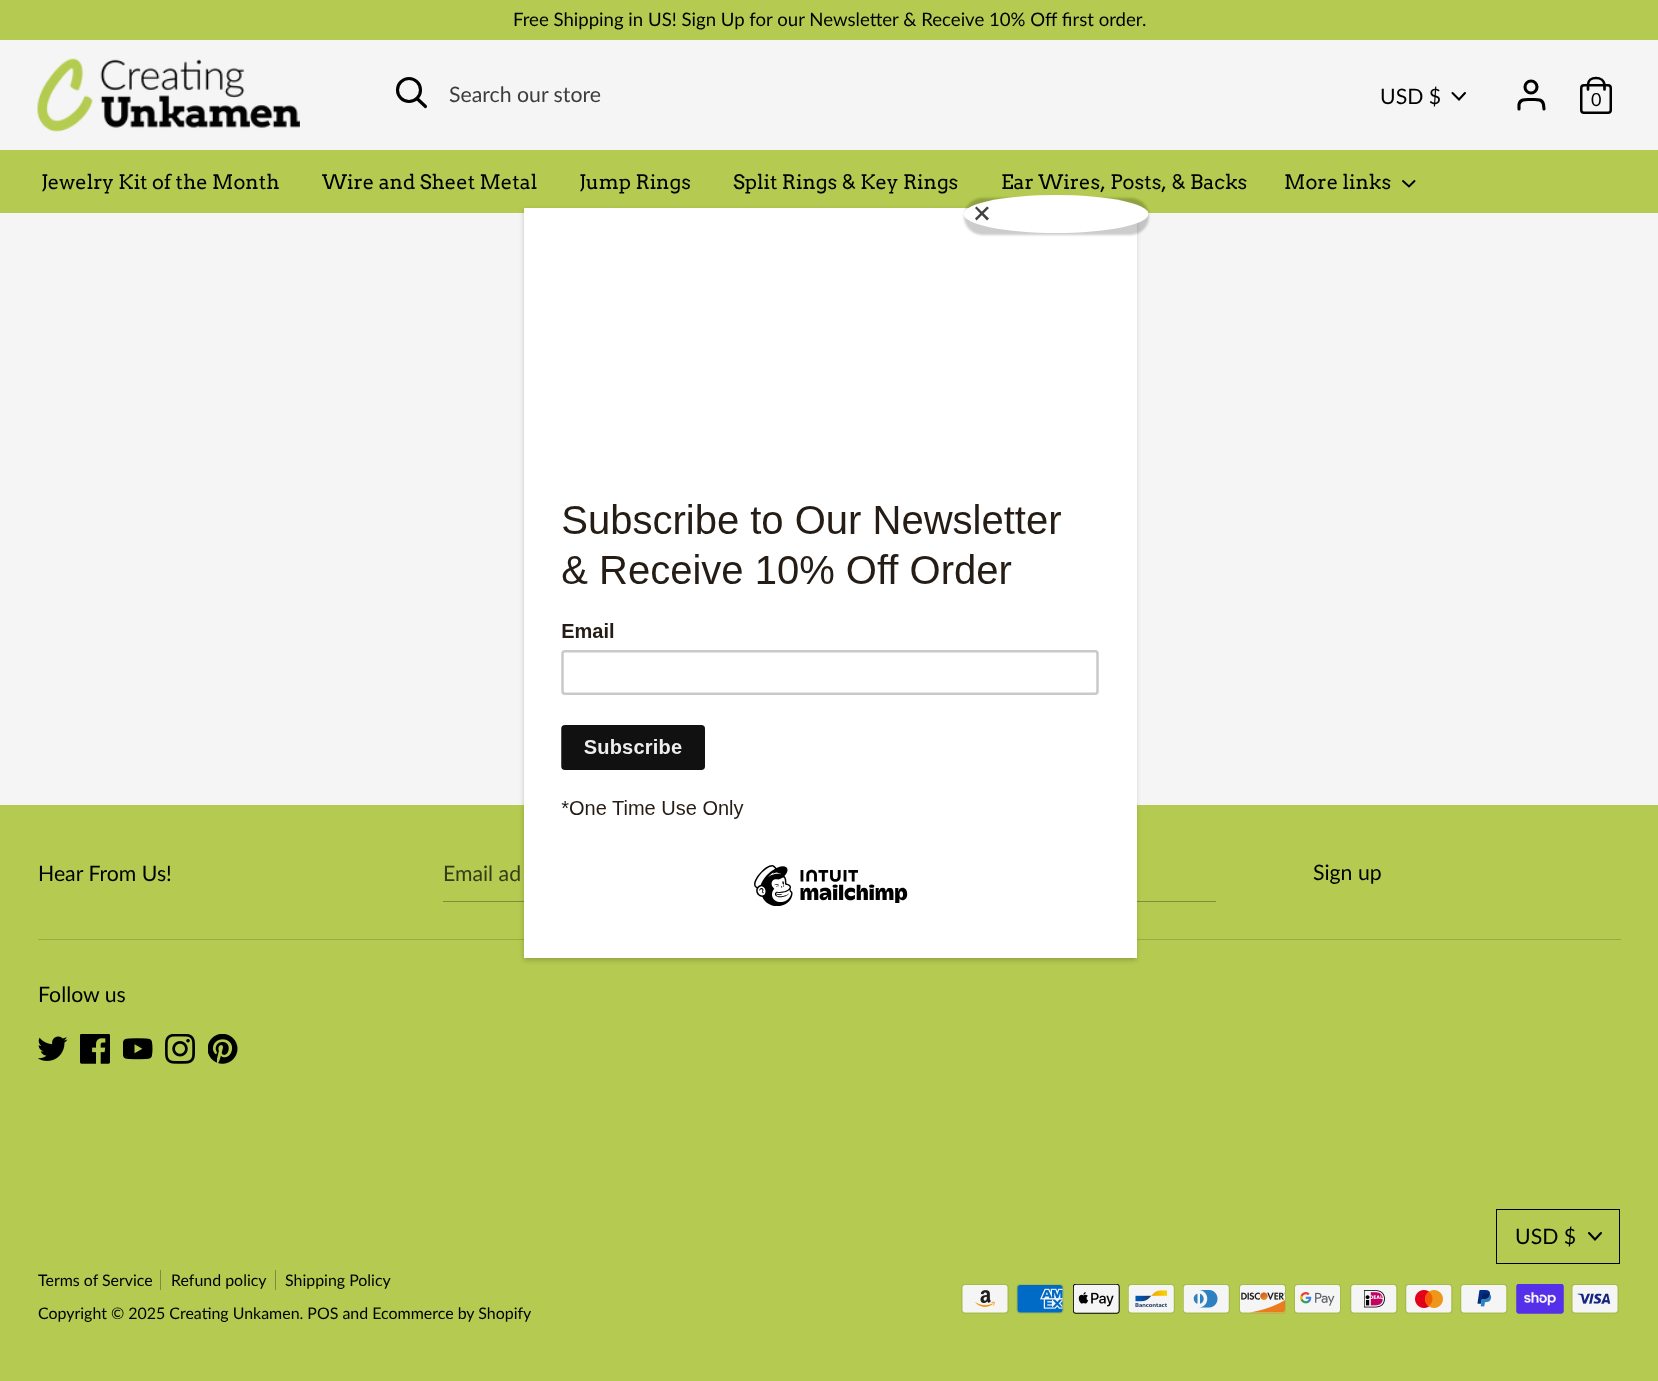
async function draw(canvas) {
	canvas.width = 1658;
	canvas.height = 1381;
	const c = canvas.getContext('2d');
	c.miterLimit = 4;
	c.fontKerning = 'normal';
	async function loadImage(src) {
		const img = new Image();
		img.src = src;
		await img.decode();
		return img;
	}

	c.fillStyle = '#f5f5f5';
	c.fillRect(0, 0, 1658, 1381);
	c.fillStyle = '#b4ca50';
	c.fillRect(0, 0, 1658, 40);
	c.font = '18.6px Lato';
	c.fillStyle = '#000';
	c.fillText('Free Shipping in US! Sign Up for our Newsletter & Receive 10% Off first order.', 513, 26);
	c.drawImage(await loadImage('img1.png'), 37, 58, 263, 74);
	c.beginPath();
	c.arc(409, 90, 11.5, 0, 2 * Math.PI);
	c.strokeStyle = '#000';
	c.lineWidth = 3.1;
	c.stroke();
	c.beginPath();
	c.moveTo(425.5, 106.5);
	c.lineTo(417, 98.5);
	c.lineCap = 'round';
	c.stroke();
	c.font = '21.25px Lato';
	c.fillStyle = '#3d3d3d';
	c.fillText('Search our store', 449, 102);
	c.fillStyle = '#000';
	c.fillText('USD $', 1380, 104);
	c.beginPath();
	c.moveTo(1452.5, 93);
	c.lineTo(1459, 99.5);
	c.lineTo(1465, 93);
	c.lineWidth = 2.1;
	c.stroke();
	c.beginPath();
	c.moveTo(1544, 109);
	c.lineTo(1543.5, 104.5);
	c.bezierCurveTo(1542.5, 98.5, 1536, 99.5, 1531, 99.5);
	c.bezierCurveTo(1526.5, 99.5, 1520, 98.5, 1519, 104.5);
	c.lineTo(1519, 109);
	c.lineWidth = 3.1;
	c.stroke();
	c.beginPath();
	c.arc(1531, 87, 6, 0, 2 * Math.PI);
	c.stroke();
	c.beginPath();
	c.roundRect(1581.25, 85.25, 29.5, 27.5, 2.75);
	c.lineWidth = 2.5;
	c.stroke();
	c.beginPath();
	c.moveTo(1588, 89.5);
	c.lineTo(1588, 84.5);
	c.bezierCurveTo(1588, 80.5, 1591.5, 78, 1596, 78);
	c.bezierCurveTo(1600.5, 78, 1604, 80.5, 1604.5, 84.5);
	c.lineTo(1604.5, 89.5);
	c.lineWidth = 2.7;
	c.stroke();
	c.font = '18px Lato';
	c.fillText('0', 1591, 106);
	c.fillStyle = '#b4ca50';
	c.fillRect(0, 150, 1658, 63);
	c.font = '20px Arvo';
	c.fillStyle = '#000';
	for (const [text, x, y] of [
		['Jewelry Kit of the Month', 41, 189],
		['Wire and Sheet Metal', 322, 189],
		['Jump Rings', 579, 189],
		['Split Rings & Key Rings', 733, 189],
		['Ear Wires, Posts, & Backs', 1001, 189],
		['More links', 1284, 189],
	]) {
		c.fillText(text, x, y);
	}
	c.beginPath();
	c.moveTo(1403, 181);
	c.lineTo(1409, 186.5);
	c.lineTo(1414.5, 181);
	c.lineWidth = 1.9;
	c.stroke();
	for (const [x, y, w, h, color] of [
		[0, 805, 1658, 576, '#b4ca50'],
		[443, 901, 773, 1, '#7e8d38'],
		[38, 939, 1583, 1, '#99ac44'],
	]) {
		c.fillStyle = color;
		c.fillRect(x, y, w, h);
	}
	c.fillStyle = '#00000033';
	c.filter = 'blur(2.5px)';
	c.beginPath();
	c.rect(524, 210, 612, 750);
	c.fill();
	c.filter = 'none';
	c.drawImage(await loadImage('img2.png'), 524, 208, 613, 750);
	c.filter = 'blur(1px)';
	c.beginPath();
	c.roundRect(964, 198, 185, 37, 18.5);
	c.fill();
	c.filter = 'none';
	c.fillStyle = '#fff';
	c.beginPath();
	c.ellipse(1056, 214, 92.5, 19, 0, 0, 2 * Math.PI);
	c.fill();
	c.fillStyle = '#414141';
	c.beginPath();
	c.moveTo(987, 206.5);
	c.lineTo(989, 208);
	c.lineTo(976.5, 220.5);
	c.lineTo(975, 218.5);
	c.closePath();
	c.fill();
	c.beginPath();
	c.moveTo(975, 208);
	c.lineTo(976.5, 206.5);
	c.lineTo(989, 218.5);
	c.lineTo(987, 220.5);
	c.closePath();
	c.fill();
	c.font = '21.25px Lato';
	c.fillStyle = '#000';
	c.fillText('Hear From Us!', 38, 881);
	c.fillStyle = '#363c18';
	c.fillText('Email ad', 443, 881);
	c.fillStyle = '#000';
	c.fillText('Sign up', 1313, 880);
	c.fillText('Follow us', 38, 1002);
	c.drawImage(await loadImage('img3.png'), 38, 1036, 30, 25);
	c.drawImage(await loadImage('img4.png'), 80, 1034, 30, 30);
	c.drawImage(await loadImage('img5.png'), 123, 1038, 30, 22);
	c.drawImage(await loadImage('img6.png'), 165, 1034, 30, 30);
	c.drawImage(await loadImage('img7.png'), 208, 1034, 30, 30);
	c.lineWidth = 1;
	c.strokeRect(1496.5, 1209.5, 123, 54);
	c.fillText('USD $', 1515, 1244);
	c.beginPath();
	c.moveTo(1589, 1233);
	c.lineTo(1595, 1239.5);
	c.lineTo(1601, 1233);
	c.lineWidth = 2.1;
	c.stroke();
	c.drawImage(await loadImage('img8.png'), 961, 1284, 48, 30);
	c.drawImage(await loadImage('img9.png'), 1016, 1284, 48, 30);
	c.drawImage(await loadImage('img10.png'), 1073, 1284, 47, 30);
	c.drawImage(await loadImage('img11.png'), 1128, 1284, 47, 30);
	c.drawImage(await loadImage('img12.png'), 1183, 1284, 47, 30);
	c.drawImage(await loadImage('img13.png'), 1239, 1284, 47, 30);
	c.drawImage(await loadImage('img14.png'), 1294, 1284, 47, 30);
	c.drawImage(await loadImage('img15.png'), 1350, 1284, 48, 30);
	c.drawImage(await loadImage('img16.png'), 1405, 1284, 48, 30);
	c.drawImage(await loadImage('img17.png'), 1460, 1284, 48, 30);
	c.drawImage(await loadImage('img18.png'), 1516, 1284, 48, 30);
	c.drawImage(await loadImage('img19.png'), 1571, 1284, 48, 30);
	c.font = '15.95px Lato';
	c.fillText('Terms of Service', 38, 1286);
	c.fillStyle = '#7e8d38';
	c.fillRect(160, 1270, 1, 20);
	c.fillStyle = '#000';
	c.fillText('Refund policy', 171, 1286);
	c.fillStyle = '#7e8d38';
	c.fillRect(275, 1270, 1, 20);
	c.fillStyle = '#000';
	c.fillText('Shipping Policy', 285, 1286);
	c.fillText('Copyright © 2025 Creating Unkamen. POS and Ecommerce by Shopify', 38, 1319);
}

draw(document.querySelector('canvas'));
